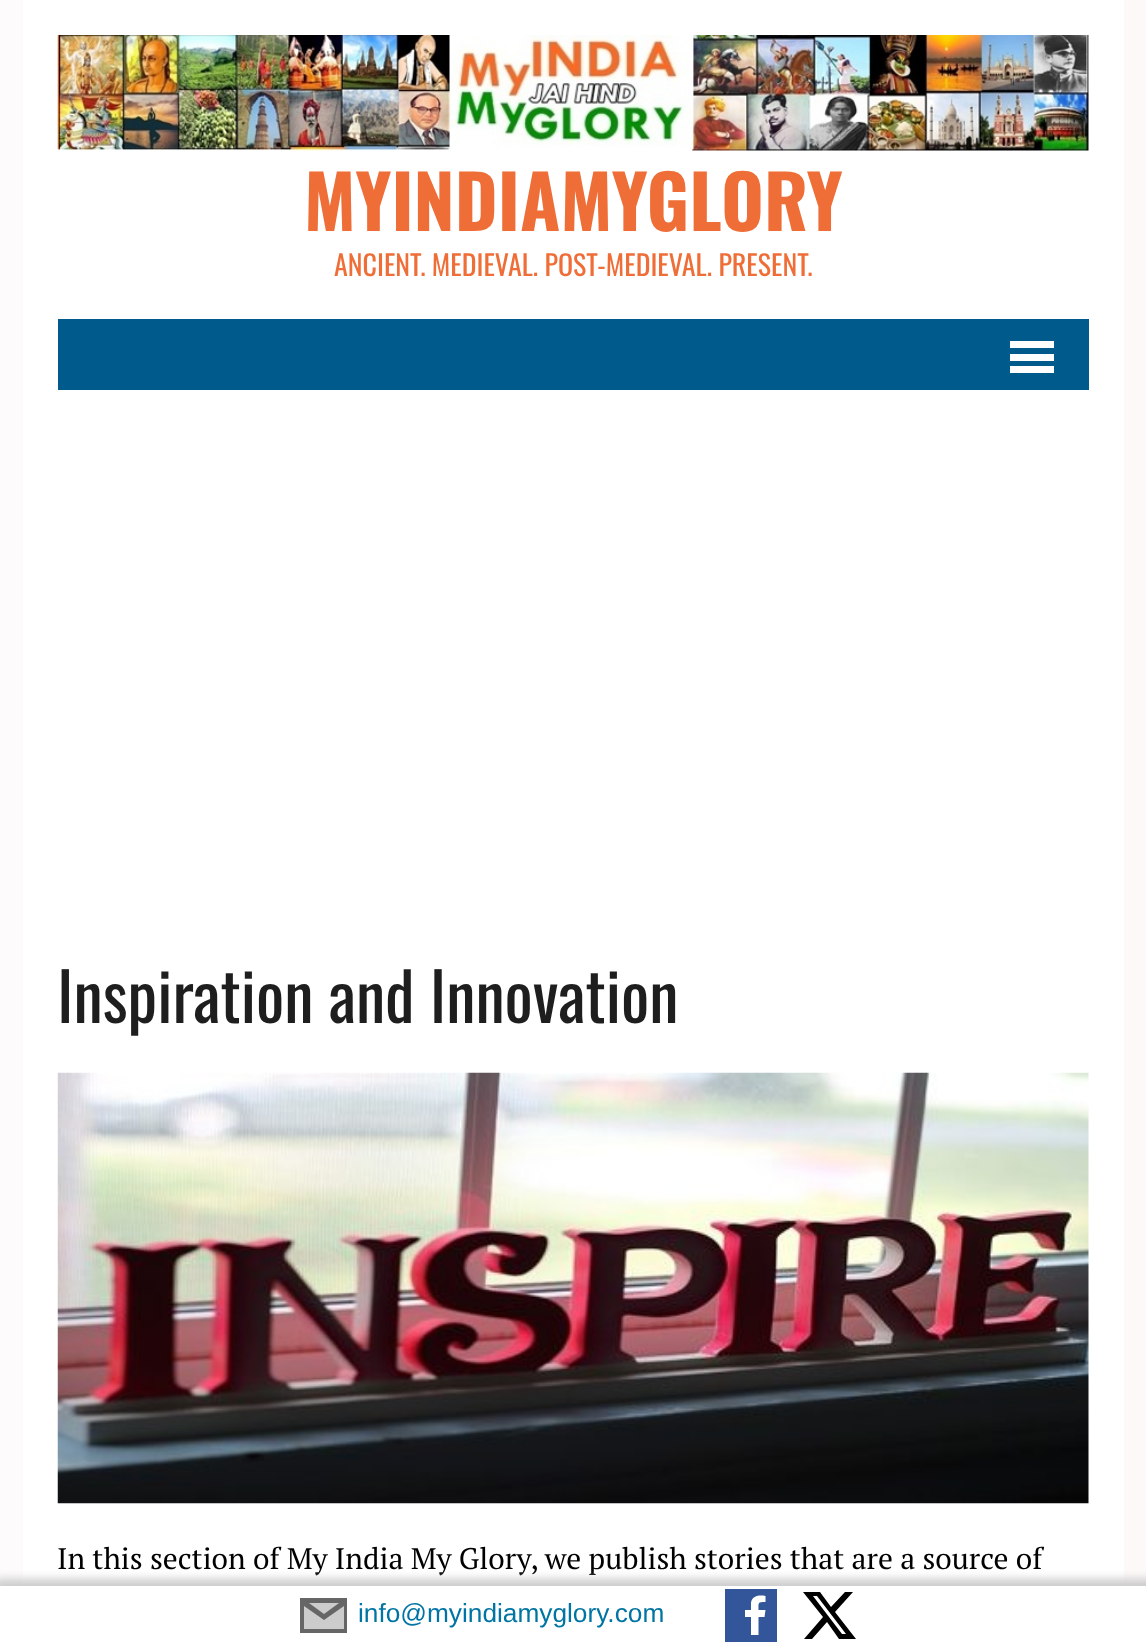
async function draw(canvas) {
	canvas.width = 1146;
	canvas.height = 1645;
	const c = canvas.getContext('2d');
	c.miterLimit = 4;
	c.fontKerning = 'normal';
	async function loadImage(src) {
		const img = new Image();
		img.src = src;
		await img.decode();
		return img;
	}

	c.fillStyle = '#fff';
	c.fillRect(0, 0, 1146, 1645);
	c.drawImage(await loadImage('img1.png'), 0, 0, 1146, 1586);
	c.fillRect(23, 0, 1101, 1586);
	c.drawImage(await loadImage('img2.png'), 57, 35, 1032, 116);
	c.font = 'bold 73.5px Oswald';
	c.fillStyle = '#ef6e37';
	c.fillText('MYINDIAMYGLORY', 304, 231);
	c.font = '28px Oswald';
	c.fillText('ANCIENT. MEDIEVAL. POST-MEDIEVAL. PRESENT.', 334, 276);
	for (const [x, y, w, h, color] of [
		[58, 319, 1031, 71, '#005a8c'],
		[1010, 341, 44, 7, '#fff'],
		[1010, 354, 44, 7, '#fff'],
		[1010, 366, 44, 7, '#fff'],
	]) {
		c.fillStyle = color;
		c.fillRect(x, y, w, h);
	}
	c.font = '66.5px Oswald';
	c.fillStyle = '#1f1e1e';
	c.fillText('Inspiration and Innovation', 57, 1023);
	c.drawImage(await loadImage('img3.png'), 57, 1072, 1032, 432);
	c.font = '29.75px PT Serif';
	c.fillStyle = '#000';
	c.fillText('In this section of My India My Glory, we publish stories that are a source of', 57, 1569);
	c.fillStyle = '#ccc';
	c.filter = 'blur(5px)';
	c.beginPath();
	c.rect(-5, 1579, 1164, 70);
	c.fill();
	c.filter = 'none';
	c.fillStyle = '#fff';
	c.fillRect(0, 1586, 1146, 59);
	c.fillStyle = '#359';
	c.fillRect(725, 1589, 52, 53);
	c.fillStyle = '#000';
	c.beginPath();
	c.moveTo(845, 1592);
	c.lineTo(853, 1592);
	c.lineTo(835, 1612);
	c.lineTo(856, 1639);
	c.lineTo(839, 1639);
	c.lineTo(827, 1622);
	c.lineTo(812, 1639);
	c.lineTo(804, 1639);
	c.lineTo(823, 1617);
	c.lineTo(803, 1592);
	c.lineTo(820, 1592);
	c.lineTo(831, 1607);
	c.closePath();
	c.moveTo(842, 1634);
	c.lineTo(846, 1634);
	c.lineTo(817, 1596);
	c.lineTo(813, 1596);
	c.closePath();
	c.fill();
	c.font = '26.25px Liberation Sans';
	c.fillStyle = '#0074a2';
	c.fillText('info@myindiamyglory.com', 358, 1622);
	c.fillStyle = '#ccc';
	c.fillRect(304, 1603, 40, 26);
	c.fillStyle = '#666';
	c.beginPath();
	c.moveTo(300, 1598);
	c.lineTo(300, 1633);
	c.lineTo(347, 1633);
	c.lineTo(347, 1598);
	c.closePath();
	c.moveTo(339, 1603);
	c.lineTo(324, 1614);
	c.lineTo(309, 1603);
	c.closePath();
	c.moveTo(344, 1629);
	c.lineTo(304, 1629);
	c.lineTo(304, 1606);
	c.lineTo(324, 1620);
	c.lineTo(344, 1606);
	c.closePath();
	c.fill();
	c.fillStyle = '#fff';
	c.beginPath();
	c.moveTo(758.5, 1635);
	c.lineTo(758.5, 1617);
	c.lineTo(764.5, 1617);
	c.lineTo(765.5, 1610);
	c.lineTo(758.5, 1610);
	c.bezierCurveTo(758.5, 1602.5, 757.5, 1602, 765.5, 1602);
	c.lineTo(765.5, 1596);
	c.bezierCurveTo(759.5, 1595, 752.5, 1595.5, 751, 1602.5);
	c.lineTo(751, 1610);
	c.lineTo(745, 1610);
	c.lineTo(745, 1617);
	c.lineTo(751, 1617);
	c.lineTo(751, 1635);
	c.closePath();
	c.fill();
}

draw(document.querySelector('canvas'));
